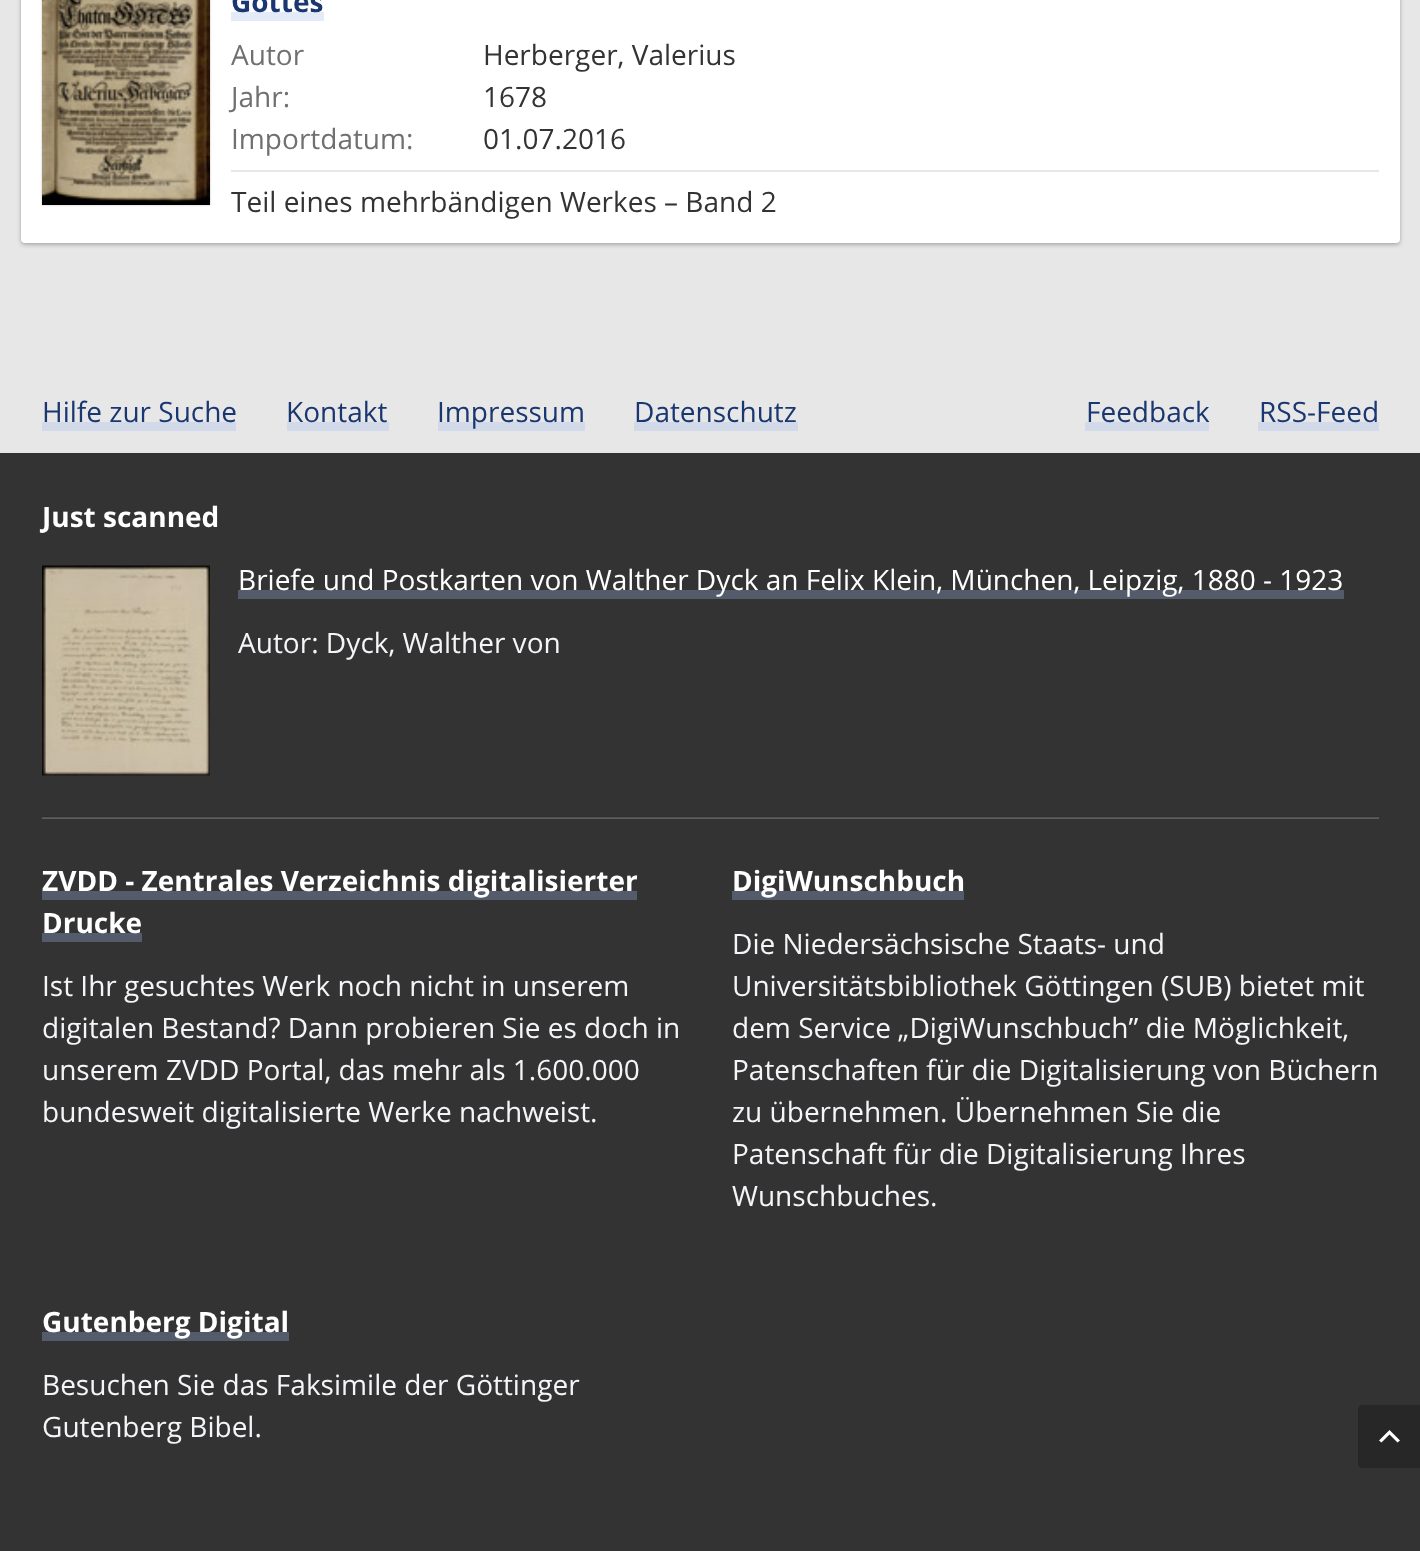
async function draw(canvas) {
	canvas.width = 1420;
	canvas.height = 1551;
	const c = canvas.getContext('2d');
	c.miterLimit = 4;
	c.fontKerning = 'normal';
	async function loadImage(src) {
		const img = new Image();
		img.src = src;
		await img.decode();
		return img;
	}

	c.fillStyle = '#e7e7e7';
	c.fillRect(0, 0, 1420, 1551);
	c.fillStyle = '#0000003d';
	c.filter = 'blur(2px)';
	c.beginPath();
	c.roundRect(21, -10, 1379, 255, 4);
	c.fill();
	c.filter = 'none';
	c.fillStyle = '#00000014';
	c.filter = 'blur(1px)';
	c.beginPath();
	c.roundRect(21, -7, 1379, 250, 4);
	c.fill();
	c.filter = 'none';
	c.fillStyle = '#fff';
	c.beginPath();
	c.roundRect(21, -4, 1379, 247, 4);
	c.fill();
	c.fillStyle = '#0000003d';
	c.filter = 'blur(1px)';
	c.beginPath();
	c.rect(42, -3, 168, 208);
	c.fill();
	c.filter = 'none';
	c.drawImage(await loadImage('img1.png'), 42, 0, 168, 205);
	c.fillStyle = '#e3eaf8';
	c.fillRect(231, 12, 93, 9);
	c.font = 'bold 28px Open Sans';
	c.fillStyle = '#1a3771';
	c.fillText('Gottes', 231, 12);
	c.font = '28px Open Sans';
	c.fillStyle = '#707070';
	c.fillText('Autor', 231, 65);
	c.fillStyle = '#333';
	c.fillText('Herberger, Valerius', 483, 65);
	c.fillStyle = '#707070';
	c.fillText('Jahr:', 231, 107);
	c.fillStyle = '#333';
	c.fillText('1678', 483, 107);
	c.fillStyle = '#707070';
	c.fillText('Importdatum:', 231, 149);
	c.fillStyle = '#333';
	c.fillText('01.07.2016', 483, 149);
	c.fillStyle = '#e7e7e7';
	c.fillRect(231, 170, 1148, 2);
	c.fillStyle = '#333';
	c.fillText('Teil eines mehrbändigen Werkes – Band 2', 231, 212);
	c.fillStyle = '#d2d9e8';
	c.fillRect(42, 422, 194, 9);
	c.fillStyle = '#1a3771';
	c.fillText('Hilfe zur Suche', 42, 422);
	c.fillStyle = '#d2d9e8';
	c.fillRect(287, 422, 102, 9);
	c.fillStyle = '#1a3771';
	c.fillText('Kontakt', 286, 422);
	c.fillStyle = '#d2d9e8';
	c.fillRect(438, 422, 147, 9);
	c.fillStyle = '#1a3771';
	c.fillText('Impressum', 437, 422);
	c.fillStyle = '#d2d9e8';
	c.fillRect(634, 422, 164, 9);
	c.fillStyle = '#1a3771';
	c.fillText('Datenschutz', 634, 422);
	c.fillStyle = '#d2d9e8';
	c.fillRect(1085, 422, 124, 9);
	c.fillStyle = '#1a3771';
	c.fillText('Feedback', 1086, 422);
	c.fillStyle = '#d2d9e8';
	c.fillRect(1258, 422, 121, 9);
	c.fillStyle = '#1a3771';
	c.fillText('RSS-Feed', 1259, 422);
	for (const [x, y, w, h, color] of [
		[0, 453, 1420, 1098, '#333'],
		[42, 816, 1337, 1, '#2e2e2e'],
		[42, 818, 1337, 1, '#5c5c5c'],
		[42, 817, 1337, 1, '#535353'],
	]) {
		c.fillStyle = color;
		c.fillRect(x, y, w, h);
	}
	c.font = 'bold 28px Open Sans';
	c.fillStyle = '#fff';
	c.fillText('Just scanned', 42, 527);
	c.drawImage(await loadImage('img2.png'), 42, 565, 168, 211);
	c.fillStyle = '#545b6a';
	c.fillRect(238, 590, 1106, 9);
	c.font = '28px Open Sans';
	c.fillStyle = '#fff';
	c.fillText('Briefe und Postkarten von Walther Dyck an Felix Klein, München, Leipzig, 1880 - 1923', 238, 590);
	c.fillStyle = '#f4f5f8';
	c.fillText('Autor: Dyck, Walther von', 238, 653);
	c.fillStyle = '#545b6a';
	c.fillRect(42, 891, 595, 9);
	c.font = 'bold 28px Open Sans';
	c.fillStyle = '#fff';
	c.fillText('ZVDD - Zentrales Verzeichnis digitalisierter', 42, 891);
	c.fillStyle = '#545b6a';
	c.fillRect(42, 933, 100, 9);
	c.fillStyle = '#fff';
	c.fillText('Drucke', 42, 933);
	c.font = '28px Open Sans';
	c.fillStyle = '#f4f5f8';
	for (const [text, x, y] of [
		['Ist Ihr gesuchtes Werk noch nicht in unserem', 42, 996],
		['digitalen Bestand? Dann probieren Sie es doch in', 42, 1038],
		['unserem ZVDD Portal, das mehr als 1.600.000', 42, 1080],
		['bundesweit digitalisierte Werke nachweist.', 42, 1122],
	]) {
		c.fillText(text, x, y);
	}
	c.fillStyle = '#545b6a';
	c.fillRect(732, 891, 232, 9);
	c.font = 'bold 28px Open Sans';
	c.fillStyle = '#fff';
	c.fillText('DigiWunschbuch', 732, 891);
	c.font = '28px Open Sans';
	c.fillStyle = '#f4f5f8';
	for (const [text, x, y] of [
		['Die Niedersächsische Staats- und', 732, 954],
		['Universitätsbibliothek Göttingen (SUB) bietet mit', 732, 996],
		['dem Service „DigiWunschbuch” die Möglichkeit,', 732, 1038],
		['Patenschaften für die Digitalisierung von Büchern', 732, 1080],
		['zu übernehmen. Übernehmen Sie die', 732, 1122],
		['Patenschaft für die Digitalisierung Ihres', 732, 1164],
		['Wunschbuches.', 732, 1206],
	]) {
		c.fillText(text, x, y);
	}
	c.fillStyle = '#545b6a';
	c.fillRect(42, 1332, 247, 9);
	c.font = 'bold 28px Open Sans';
	c.fillStyle = '#fff';
	c.fillText('Gutenberg Digital', 42, 1332);
	c.font = '28px Open Sans';
	c.fillStyle = '#f4f5f8';
	c.fillText('Besuchen Sie das Faksimile der Göttinger', 42, 1395);
	c.fillText('Gutenberg Bibel.', 42, 1437);
	c.fillStyle = '#272727';
	c.beginPath();
	c.moveTo(1362, 1405);
	c.lineTo(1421, 1405);
	c.lineTo(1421, 1468);
	c.lineTo(1362, 1468);
	c.bezierCurveTo(1360, 1468, 1358, 1466, 1358, 1464);
	c.lineTo(1358, 1409);
	c.bezierCurveTo(1358, 1407, 1360, 1405, 1362, 1405);
	c.closePath();
	c.fill();
	c.fillStyle = '#fff';
	c.beginPath();
	c.moveTo(1381.5, 1442.5);
	c.lineTo(1379, 1440.5);
	c.lineTo(1389.5, 1430);
	c.lineTo(1400, 1440.5);
	c.lineTo(1397.5, 1442.5);
	c.lineTo(1389.5, 1434.5);
	c.closePath();
	c.fill();
}

draw(document.querySelector('canvas'));
